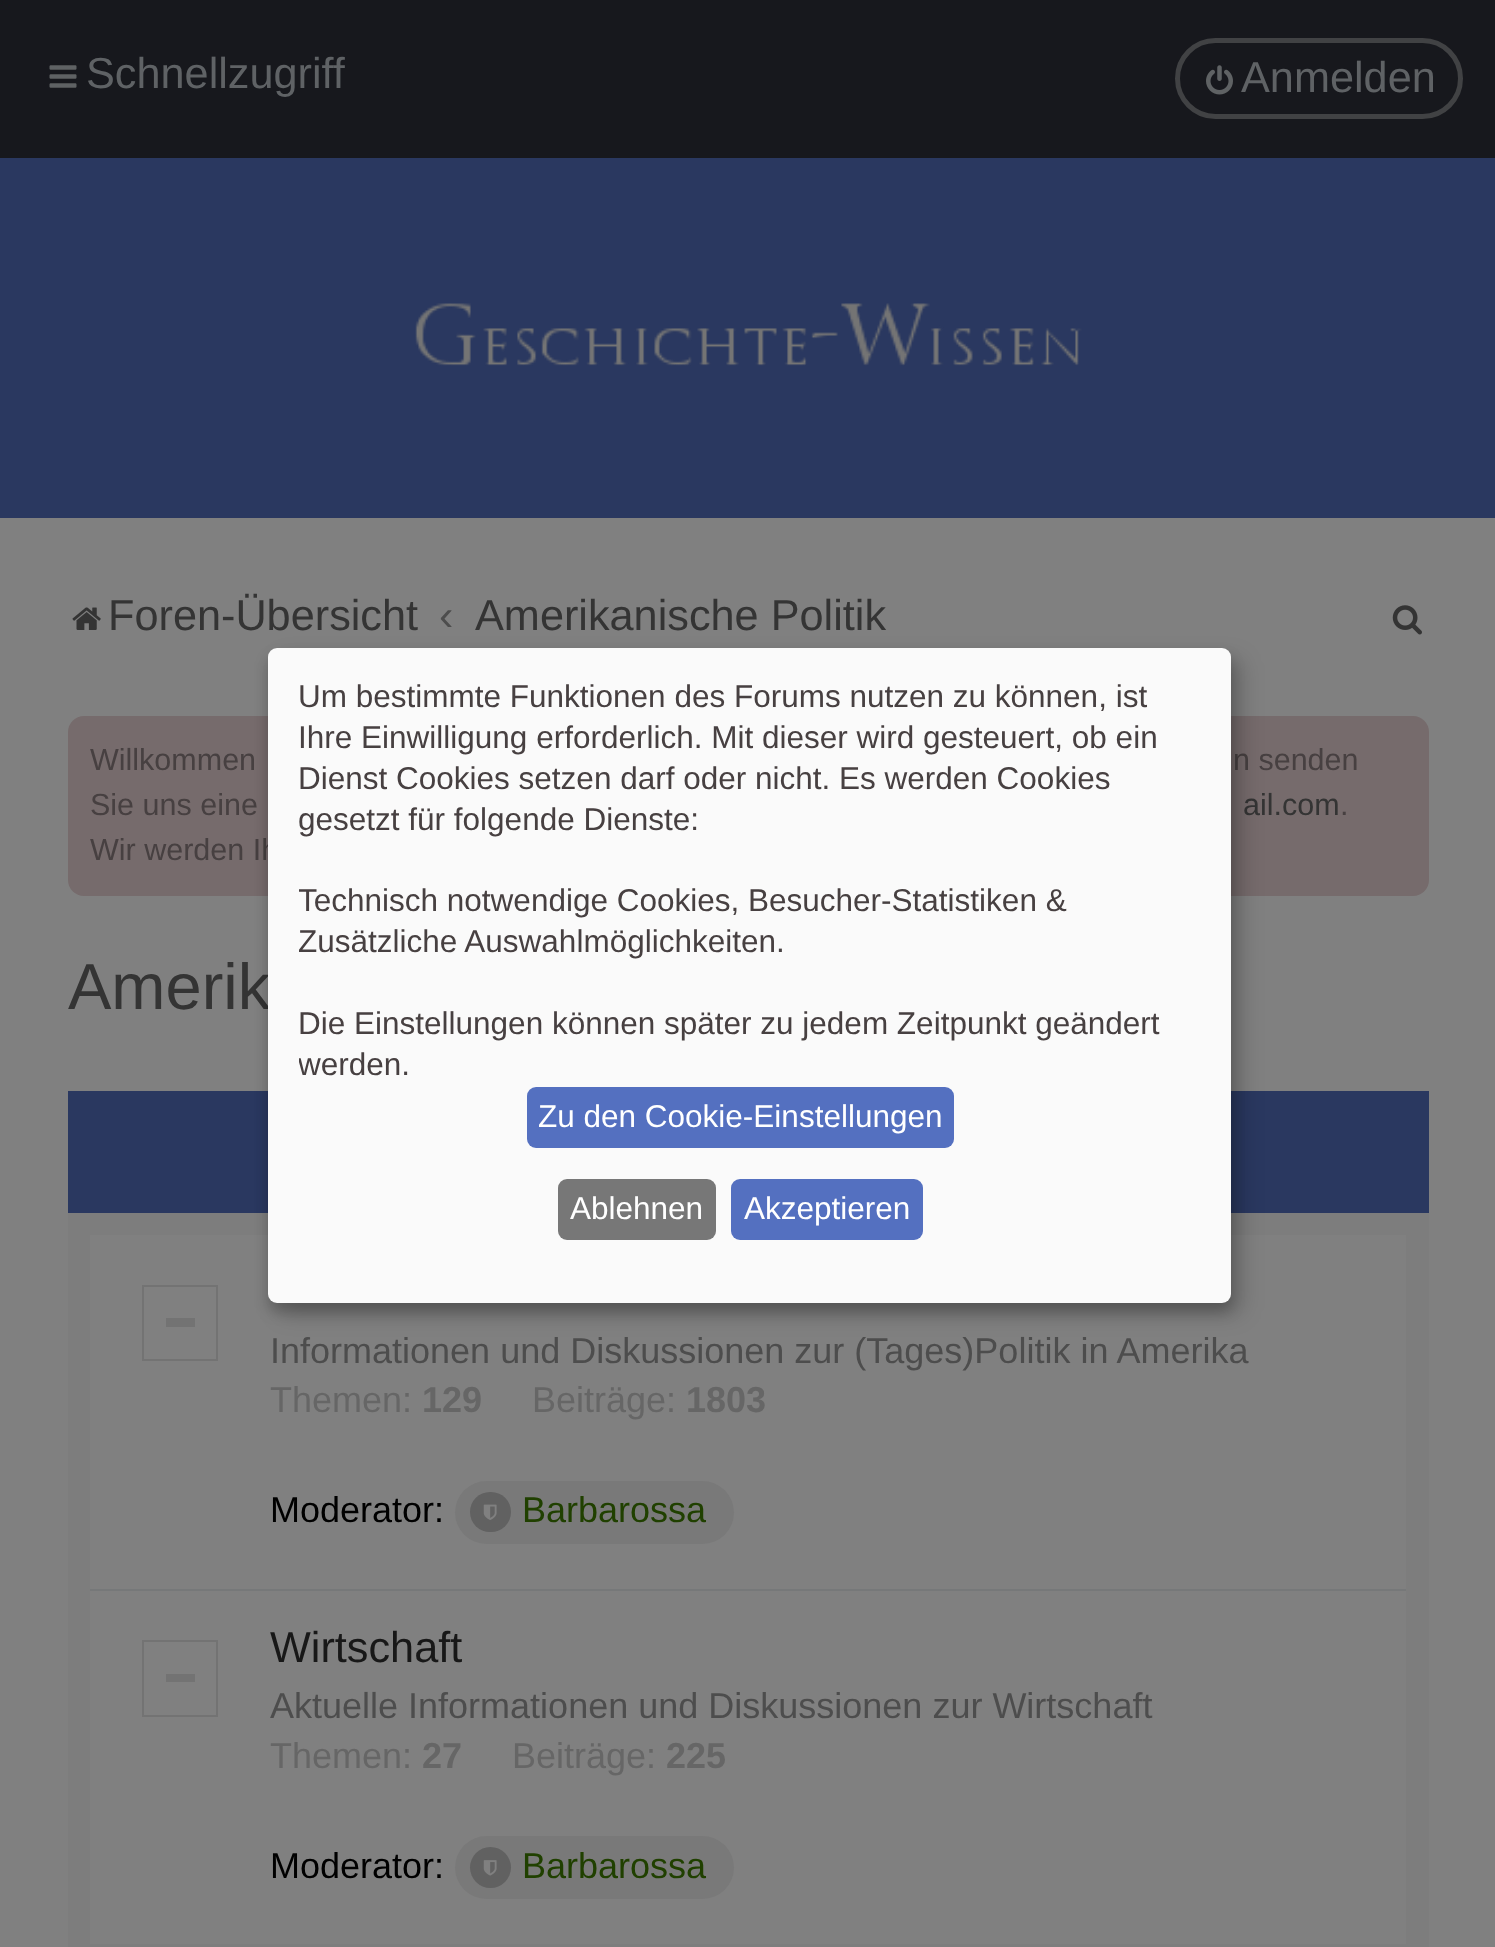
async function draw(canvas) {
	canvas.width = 1495;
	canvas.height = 1947;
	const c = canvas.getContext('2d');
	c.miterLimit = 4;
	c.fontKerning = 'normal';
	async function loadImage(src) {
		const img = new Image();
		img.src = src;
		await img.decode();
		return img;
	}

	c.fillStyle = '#2a3860';
	c.fillRect(0, 0, 1495, 1947);
	c.fillStyle = '#17181d';
	c.fillRect(0, 0, 1495, 158);
	c.drawImage(await loadImage('img1.png'), 49, 65, 28, 23);
	c.font = '43.25px Liberation Sans';
	c.fillStyle = '#5f6265';
	c.fillText('Schnellzugriff', 86, 88);
	c.beginPath();
	c.roundRect(1177.5, 40.5, 283, 76, 38);
	c.strokeStyle = '#414244';
	c.lineWidth = 5;
	c.stroke();
	c.drawImage(await loadImage('img2.png'), 1206, 65, 27, 30);
	c.fillText('Anmelden', 1241, 92);
	c.drawImage(await loadImage('img3.png'), 415, 303, 667, 63);
	c.fillStyle = '#808080';
	c.fillRect(0, 518, 1495, 1429);
	c.drawImage(await loadImage('img4.png'), 72, 607, 29, 23);
	c.fillStyle = '#343434';
	c.fillText('Foren-Übersicht', 108, 630);
	c.fillStyle = '#4d4d4d';
	c.fillText('‹', 439, 630);
	c.fillStyle = '#343434';
	c.fillText('Amerikanische Politik', 475, 630);
	c.drawImage(await loadImage('img5.png'), 1392, 605, 30, 30);
	c.fillStyle = '#766b6c';
	c.beginPath();
	c.roundRect(68, 716, 1361, 180, 16);
	c.fill();
	c.font = '30.5px Liberation Sans';
	c.fillStyle = '#474041';
	for (const [text, x, y] of [
		['Willkommen', 90, 770],
		['n senden', 1233, 770],
		['Sie uns eine', 90, 815],
	]) {
		c.fillText(text, x, y);
	}
	c.fillStyle = '#343434';
	c.fillText('ail.com', 1243, 815);
	c.fillStyle = '#474041';
	c.fillText('.', 1340, 815);
	c.fillText('Wir werden Ih', 90, 860);
	c.font = '65px Liberation Sans';
	c.fillStyle = '#343434';
	c.fillText('Amerik', 68, 1009);
	for (const [x, y, w, h, color] of [
		[68, 1213, 1361, 734, '#7d7d7d'],
		[68, 1091, 1361, 122, '#2a3860'],
		[90, 1235, 1316, 354, '#808080'],
		[90, 1589, 1316, 2, '#767879'],
	]) {
		c.fillStyle = color;
		c.fillRect(x, y, w, h);
	}
	c.strokeStyle = '#737373';
	c.lineWidth = 2;
	c.strokeRect(143, 1286, 74, 74);
	c.fillStyle = '#737373';
	c.fillRect(166, 1318, 29, 9);
	c.font = '36px Liberation Sans';
	c.fillStyle = '#4d4d4d';
	c.fillText('Informationen und Diskussionen zur (Tages)Politik in Amerika', 270, 1363);
	c.fillStyle = '#666';
	c.fillText('Themen:', 270, 1412);
	c.font = 'bold 36px Liberation Sans';
	c.fillText('129', 422, 1412);
	c.font = '36px Liberation Sans';
	c.fillText('Beiträge:', 532, 1412);
	c.font = 'bold 36px Liberation Sans';
	c.fillText('1803', 686, 1412);
	c.font = '36px Liberation Sans';
	c.fillStyle = '#000';
	c.fillText('Moderator:', 270, 1522);
	c.fillStyle = '#797979';
	c.beginPath();
	c.roundRect(455, 1481, 279, 63, 31.5);
	c.fill();
	c.fillStyle = '#616161';
	c.beginPath();
	c.roundRect(470, 1492, 41, 40, 20);
	c.fill();
	c.drawImage(await loadImage('img6.png'), 483, 1504, 14, 16);
	c.fillStyle = '#204000';
	c.fillText('Barbarossa', 522, 1522);
	c.fillStyle = '#808080';
	c.fillRect(90, 1591, 1316, 353);
	c.strokeRect(143, 1641, 74, 75);
	c.fillStyle = '#737373';
	c.fillRect(166, 1674, 29, 8);
	c.font = '43.25px Liberation Sans';
	c.fillStyle = '#181818';
	c.fillText('Wirtschaft', 270, 1662);
	c.font = '36px Liberation Sans';
	c.fillStyle = '#4d4d4d';
	c.fillText('Aktuelle Informationen und Diskussionen zur Wirtschaft', 270, 1718);
	c.fillStyle = '#666';
	c.fillText('Themen:', 270, 1768);
	c.font = 'bold 36px Liberation Sans';
	c.fillText('27', 422, 1768);
	c.font = '36px Liberation Sans';
	c.fillText('Beiträge:', 512, 1768);
	c.font = 'bold 36px Liberation Sans';
	c.fillText('225', 666, 1768);
	c.font = '36px Liberation Sans';
	c.fillStyle = '#000';
	c.fillText('Moderator:', 270, 1878);
	c.fillStyle = '#797979';
	c.beginPath();
	c.roundRect(455, 1836, 279, 63, 31.5);
	c.fill();
	c.fillStyle = '#616161';
	c.beginPath();
	c.arc(490.5, 1867.5, 20.5, 0, 2 * Math.PI);
	c.fill();
	c.drawImage(await loadImage('img7.png'), 483, 1860, 14, 16);
	c.fillStyle = '#204000';
	c.fillText('Barbarossa', 522, 1878);
	c.fillStyle = '#00000030';
	c.filter = 'blur(11px)';
	c.beginPath();
	c.roundRect(279, 659, 963, 655, 9);
	c.fill();
	c.filter = 'none';
	c.fillStyle = '#00000033';
	c.filter = 'blur(7px)';
	c.beginPath();
	c.roundRect(268, 657, 963, 655, 9);
	c.fill();
	c.filter = 'none';
	c.fillStyle = '#fafafa';
	c.beginPath();
	c.roundRect(268, 648, 963, 655, 9);
	c.fill();
	c.font = '31.5px Liberation Sans';
	c.fillStyle = '#474041';
	for (const [text, x, y] of [
		['Um bestimmte Funktionen des Forums nutzen zu können, ist', 298, 707],
		['Ihre Einwilligung erforderlich. Mit dieser wird gesteuert, ob ein', 298, 748],
		['Dienst Cookies setzen darf oder nicht. Es werden Cookies', 298, 789],
		['gesetzt für folgende Dienste:', 298, 830],
	]) {
		c.fillText(text, x, y);
	}
	c.save();
	c.beginPath();
	c.rect(299, 677, 900, 410);
	c.clip();
	c.fillText('Technisch notwendige Cookies, Besucher-Statistiken &', 298, 911);
	c.restore();
	c.fillText('Zusätzliche Auswahlmöglichkeiten.', 298, 952);
	c.fillText('Die Einstellungen können später zu jedem Zeitpunkt geändert', 298, 1034);
	c.save();
	c.beginPath();
	c.rect(299, 677, 900, 410);
	c.clip();
	c.fillText('werden.', 298, 1075);
	c.restore();
	c.fillStyle = '#5470c0';
	c.beginPath();
	c.roundRect(527, 1087, 427, 61, 9);
	c.fill();
	c.fillStyle = '#fff';
	c.fillText('Zu den Cookie-Einstellungen', 538, 1127);
	c.fillStyle = '#777';
	c.beginPath();
	c.roundRect(558, 1179, 158, 61, 9);
	c.fill();
	c.fillStyle = '#fff';
	c.fillText('Ablehnen', 570, 1219);
	c.fillStyle = '#5470c0';
	c.beginPath();
	c.roundRect(731, 1179, 192, 61, 9);
	c.fill();
	c.fillStyle = '#fff';
	c.fillText('Akzeptieren', 744, 1219);
}

draw(document.querySelector('canvas'));
